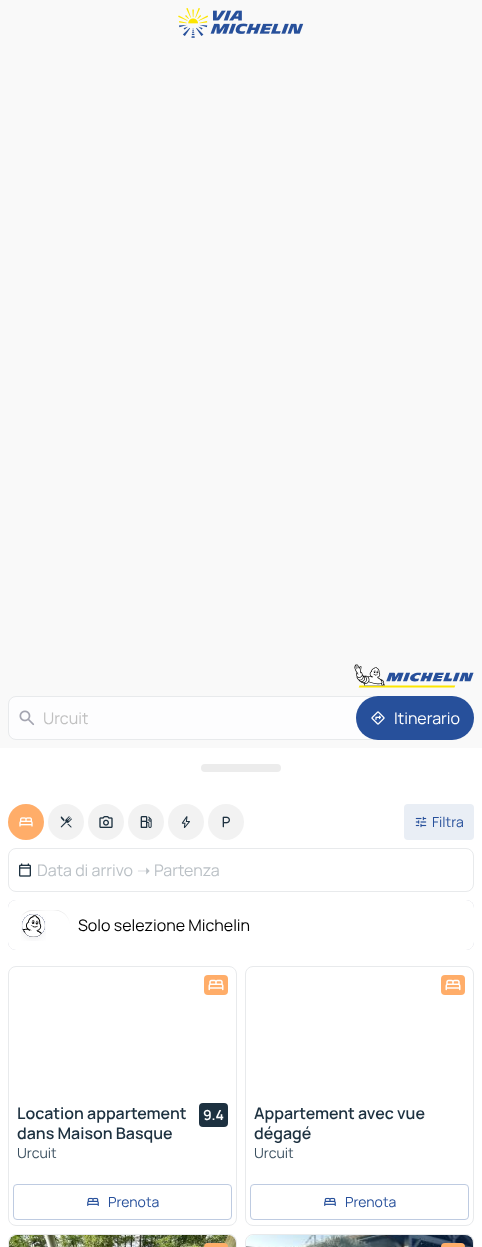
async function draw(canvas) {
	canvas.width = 482;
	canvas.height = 1247;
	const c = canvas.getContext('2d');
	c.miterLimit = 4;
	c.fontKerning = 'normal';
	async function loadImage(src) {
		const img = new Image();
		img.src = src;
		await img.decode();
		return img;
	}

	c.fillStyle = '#f9f9f9';
	c.fillRect(0, 0, 482, 1247);
	c.drawImage(await loadImage('img1.png'), 178, 8, 126, 30);
	c.drawImage(await loadImage('img2.png'), 354, 664, 120, 24);
	c.fillStyle = '#fdfdfe';
	c.beginPath();
	c.roundRect(8.5, 696.5, 371, 43, 7.5);
	c.fill();
	c.strokeStyle = '#e8eaec';
	c.stroke();
	c.drawImage(await loadImage('img3.png'), 19, 710, 16, 16);
	c.font = '200 16px Manrope';
	c.fillStyle = '#c0c0c0';
	c.fillText('Urcuit', 43, 724);
	c.fillStyle = '#27509b';
	c.beginPath();
	c.roundRect(356, 696, 118, 44, 22);
	c.fill();
	c.drawImage(await loadImage('img4.png'), 371, 711, 14, 14);
	c.fillStyle = '#fff';
	c.fillText('Itinerario', 394, 724);
	c.fillRect(0, 748, 482, 499);
	c.fillStyle = '#ececec';
	c.beginPath();
	c.roundRect(201, 764, 80, 8, 4);
	c.fill();
	c.fillStyle = '#ffad69';
	c.beginPath();
	c.arc(26, 822, 18, 0, 2 * Math.PI);
	c.fill();
	c.drawImage(await loadImage('img5.png'), 19, 817, 14, 10);
	c.fillStyle = '#f2f2f2';
	c.beginPath();
	c.arc(66, 822, 18, 0, 2 * Math.PI);
	c.fill();
	c.drawImage(await loadImage('img6.png'), 60, 816, 12, 12);
	c.beginPath();
	c.arc(106, 822, 18, 0, 2 * Math.PI);
	c.fill();
	c.drawImage(await loadImage('img7.png'), 99, 816, 14, 12);
	c.beginPath();
	c.arc(146, 822, 18, 0, 2 * Math.PI);
	c.fill();
	c.drawImage(await loadImage('img8.png'), 140, 816, 12, 12);
	c.beginPath();
	c.arc(186, 822, 18, 0, 2 * Math.PI);
	c.fill();
	c.drawImage(await loadImage('img9.png'), 181, 816, 9, 12);
	c.beginPath();
	c.arc(226, 822, 18, 0, 2 * Math.PI);
	c.fill();
	c.drawImage(await loadImage('img10.png'), 222, 816, 8, 12);
	c.fillStyle = '#e9eef5';
	c.beginPath();
	c.roundRect(404, 804, 70, 36, 4);
	c.fill();
	c.drawImage(await loadImage('img11.png'), 415, 816, 12, 12);
	c.font = '200 14px Manrope';
	c.fillStyle = '#27509b';
	c.fillText('Filtra', 432, 827);
	c.beginPath();
	c.roundRect(8.5, 848.5, 465, 43, 7.5);
	c.stroke();
	c.drawImage(await loadImage('img12.png'), 19, 863, 12, 14);
	c.font = '200 16px Manrope';
	c.fillStyle = '#bbc1c6';
	c.fillText('Data di arrivo', 37, 876);
	c.font = '16px DejaVu Sans';
	c.fillText('➝', 137, 876);
	c.font = '200 16px Manrope';
	c.fillText('Partenza', 154, 876);
	c.fillStyle = '#0c1a4b3d';
	c.filter = 'blur(0.5px)';
	c.beginPath();
	c.roundRect(8, 900, 466, 50, 8);
	c.fill();
	c.filter = 'none';
	c.fillStyle = '#fff';
	c.beginPath();
	c.roundRect(8, 900, 466, 50, 8);
	c.fill();
	c.fillStyle = '#ebebeb';
	c.beginPath();
	c.moveTo(33, 911);
	c.bezierCurveTo(41, 911, 54, 909, 61, 912);
	c.bezierCurveTo(66, 914, 70, 920, 70, 926);
	c.bezierCurveTo(70, 918, 65, 912, 58, 910);
	c.lineTo(30, 910);
	c.bezierCurveTo(23, 912, 18, 919, 18, 926);
	c.bezierCurveTo(18, 918, 24, 911, 33, 911);
	c.closePath();
	c.fill();
	c.drawImage(await loadImage('img13.png'), 21, 914, 25, 27);
	c.fillStyle = '#000';
	c.fillText('Solo selezione Michelin', 78, 931);
	c.beginPath();
	c.roundRect(8.5, 966.5, 228, 259, 7.5);
	c.stroke();
	c.fillStyle = '#ffad69';
	c.beginPath();
	c.roundRect(204, 975, 24, 20, 4);
	c.fill();
	c.drawImage(await loadImage('img14.png'), 208, 979, 16, 12);
	c.font = '200 16px "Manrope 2"';
	c.fillStyle = '#1d3140';
	c.fillText('Location appartement', 17, 1119);
	c.fillText('dans Maison Basque', 17, 1139);
	c.beginPath();
	c.roundRect(199, 1103, 29, 24, 4);
	c.fill();
	c.font = '200 14px "Manrope 2"';
	c.fillStyle = '#fff';
	c.fillText('9.4', 203, 1120);
	c.font = '200 14px Manrope';
	c.fillStyle = '#3a4f5f';
	c.fillText('Urcuit', 17, 1158);
	c.beginPath();
	c.roundRect(13.5, 1184.5, 218, 35, 3.5);
	c.strokeStyle = '#becbe1';
	c.stroke();
	c.drawImage(await loadImage('img15.png'), 87, 1197, 12, 9);
	c.fillStyle = '#27509b';
	c.fillText('Prenota', 108, 1207);
	c.beginPath();
	c.roundRect(245.5, 966.5, 228, 259, 7.5);
	c.strokeStyle = '#e8eaec';
	c.stroke();
	c.fillStyle = '#ffad69';
	c.beginPath();
	c.roundRect(441, 975, 24, 20, 4);
	c.fill();
	c.drawImage(await loadImage('img14.png'), 445, 979, 16, 12);
	c.font = '200 16px "Manrope 2"';
	c.fillStyle = '#1d3140';
	c.fillText('Appartement avec vue', 254, 1119);
	c.fillText('dégagé', 254, 1139);
	c.font = '200 14px Manrope';
	c.fillStyle = '#3a4f5f';
	c.fillText('Urcuit', 254, 1158);
	c.beginPath();
	c.roundRect(250.5, 1184.5, 218, 35, 3.5);
	c.strokeStyle = '#becbe1';
	c.stroke();
	c.drawImage(await loadImage('img15.png'), 324, 1197, 12, 9);
	c.fillStyle = '#27509b';
	c.fillText('Prenota', 345, 1207);
	c.beginPath();
	c.roundRect(8.5, 1234.5, 228, 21, 7.5);
	c.strokeStyle = '#e8eaec';
	c.stroke();
	c.drawImage(await loadImage('img16.png'), 9, 1235, 227, 12);
	c.fillStyle = '#ffad69';
	c.beginPath();
	c.roundRect(204, 1243, 24, 4, [4, 4, 0, 0]);
	c.fill();
	c.beginPath();
	c.roundRect(245.5, 1234.5, 228, 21, 7.5);
	c.stroke();
	c.drawImage(await loadImage('img17.png'), 246, 1235, 227, 12);
	c.beginPath();
	c.roundRect(441, 1243, 24, 4, [4, 4, 0, 0]);
	c.fill();
}

draw(document.querySelector('canvas'));
